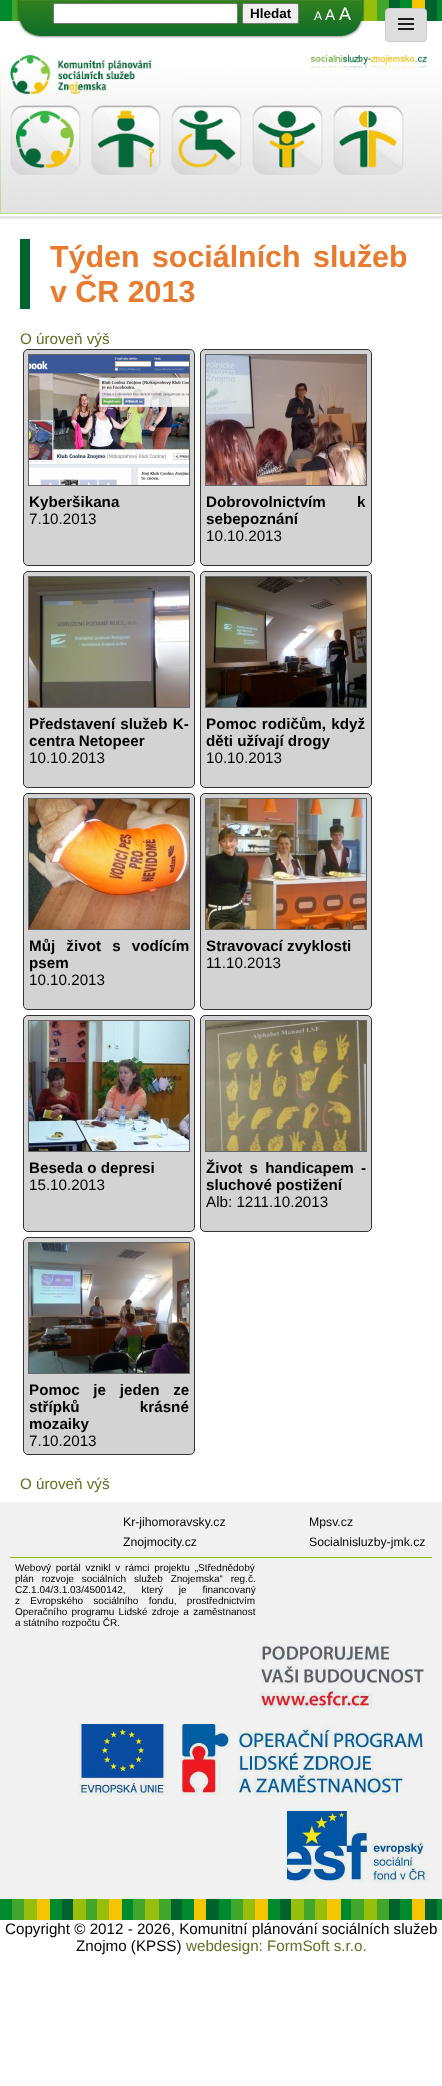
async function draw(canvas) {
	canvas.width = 442;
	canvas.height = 2086;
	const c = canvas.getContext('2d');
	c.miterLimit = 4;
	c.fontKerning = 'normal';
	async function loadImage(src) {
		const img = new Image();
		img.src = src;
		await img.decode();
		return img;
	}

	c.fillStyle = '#fff';
	c.fillRect(0, 0, 442, 2086);
	c.drawImage(await loadImage('img1.png'), 0, 0, 442, 21);
	c.drawImage(await loadImage('img2.png'), 16, 0, 349, 39);
	c.beginPath();
	c.roundRect(53.5, 3.5, 184, 20, 1.5);
	c.fill();
	c.strokeStyle = '#767676';
	c.stroke();
	c.fillStyle = '#efefef';
	c.beginPath();
	c.roundRect(242.5, 3.5, 56, 20, 1.5);
	c.fill();
	c.stroke();
	c.font = 'bold 13.5px Liberation Sans';
	c.fillStyle = '#000';
	c.fillText('Hledat', 250, 18);
	c.font = '12.25px Liberation Sans';
	c.fillStyle = '#fff';
	c.fillText('A', 314, 20);
	c.font = '15.2px Liberation Sans';
	c.fillText('A', 325, 20);
	c.font = '18px Liberation Sans';
	c.fillText('A', 339, 20);
	c.fillStyle = '#ddd';
	c.beginPath();
	c.roundRect(385.5, 8.5, 41, 33, 3.5);
	c.fill();
	c.strokeStyle = '#ccc';
	c.stroke();
	for (const [x, y, w, h, color] of [
		[398, 18, 16, 2, '#1c1c1c'],
		[398, 23, 16, 2, '#1c1c1c'],
		[398, 28, 16, 2, '#1c1c1c'],
	]) {
		c.fillStyle = color;
		c.fillRect(x, y, w, h);
	}
	c.drawImage(await loadImage('img3.png'), 0, 63, 442, 156);
	c.drawImage(await loadImage('img4.png'), 10, 55, 142, 39);
	c.drawImage(await loadImage('img5.png'), 311, 55, 116, 16);
	c.drawImage(await loadImage('img6.png'), 10, 105, 71, 70);
	c.drawImage(await loadImage('img7.png'), 16, 110, 58, 58);
	c.drawImage(await loadImage('img8.png'), 91, 105, 70, 70);
	c.drawImage(await loadImage('img9.png'), 97, 110, 58, 58);
	c.drawImage(await loadImage('img10.png'), 171, 105, 71, 70);
	c.drawImage(await loadImage('img11.png'), 178, 110, 58, 58);
	c.drawImage(await loadImage('img12.png'), 252, 105, 71, 70);
	c.drawImage(await loadImage('img13.png'), 258, 110, 58, 58);
	c.drawImage(await loadImage('img14.png'), 333, 105, 71, 70);
	c.drawImage(await loadImage('img15.png'), 339, 110, 58, 58);
	c.fillStyle = '#00632e';
	c.fillRect(20, 239, 10, 70);
	c.wordSpacing = '4px';
	c.font = 'bold 30.4px Liberation Sans';
	c.fillStyle = '#e87b2e';
	c.fillText('Týden sociálních služeb', 50, 267);
	c.wordSpacing = '0px';
	c.fillText('v ČR 2013', 50, 302);
	c.font = '15.2px Liberation Sans';
	c.fillStyle = '#5d7021';
	c.fillText('O úroveň výš', 20, 344);
	c.fillStyle = '#d3d3d3';
	c.beginPath();
	c.roundRect(23.5, 349.5, 171, 216, 4.5);
	c.fill();
	c.strokeStyle = '#333';
	c.stroke();
	c.strokeStyle = '#666';
	c.strokeRect(28.5, 354.5, 161, 131);
	c.drawImage(await loadImage('img16.png'), 29, 355, 160, 130);
	c.font = 'bold 15.2px Liberation Sans';
	c.fillStyle = '#000';
	c.fillText('Kyberšikana', 29, 507);
	c.font = '15.2px Liberation Sans';
	c.fillText('7.10.2013', 29, 524);
	c.fillStyle = '#d3d3d3';
	c.beginPath();
	c.roundRect(200.5, 349.5, 171, 216, 4.5);
	c.fill();
	c.strokeStyle = '#333';
	c.stroke();
	c.strokeStyle = '#666';
	c.strokeRect(205.5, 354.5, 161, 131);
	c.drawImage(await loadImage('img17.png'), 206, 355, 160, 130);
	c.wordSpacing = '27px';
	c.font = 'bold 15.2px Liberation Sans';
	c.fillStyle = '#000';
	c.fillText('Dobrovolnictvím k', 206, 507);
	c.wordSpacing = '0px';
	c.fillText('sebepoznání', 206, 524);
	c.font = '15.2px Liberation Sans';
	c.fillText('10.10.2013', 206, 541);
	c.fillStyle = '#d3d3d3';
	c.beginPath();
	c.roundRect(23.5, 571.5, 171, 216, 4.5);
	c.fill();
	c.strokeStyle = '#333';
	c.stroke();
	c.strokeStyle = '#666';
	c.strokeRect(28.5, 576.5, 161, 131);
	c.drawImage(await loadImage('img18.png'), 29, 577, 160, 130);
	c.wordSpacing = '1px';
	c.font = 'bold 15.2px Liberation Sans';
	c.fillStyle = '#000';
	c.fillText('Představení služeb K-', 29, 729);
	c.wordSpacing = '0px';
	c.fillText('centra Netopeer', 29, 746);
	c.font = '15.2px Liberation Sans';
	c.fillText('10.10.2013', 29, 763);
	c.fillStyle = '#d3d3d3';
	c.beginPath();
	c.roundRect(200.5, 571.5, 171, 216, 4.5);
	c.fill();
	c.strokeStyle = '#333';
	c.stroke();
	c.strokeStyle = '#666';
	c.strokeRect(205.5, 576.5, 161, 131);
	c.drawImage(await loadImage('img19.png'), 206, 577, 160, 130);
	c.wordSpacing = '1px';
	c.font = 'bold 15.2px Liberation Sans';
	c.fillStyle = '#000';
	c.fillText('Pomoc rodičům, když', 206, 729);
	c.wordSpacing = '0px';
	c.fillText('děti užívají drogy', 206, 746);
	c.font = '15.2px Liberation Sans';
	c.fillText('10.10.2013', 206, 763);
	c.fillStyle = '#d3d3d3';
	c.beginPath();
	c.roundRect(23.5, 793.5, 171, 216, 4.5);
	c.fill();
	c.strokeStyle = '#333';
	c.stroke();
	c.strokeStyle = '#666';
	c.strokeRect(28.5, 798.5, 161, 131);
	c.drawImage(await loadImage('img20.png'), 29, 799, 160, 130);
	c.wordSpacing = '7px';
	c.font = 'bold 15.2px Liberation Sans';
	c.fillStyle = '#000';
	c.fillText('Můj život s vodícím', 29, 951);
	c.wordSpacing = '0px';
	c.fillText('psem', 29, 968);
	c.font = '15.2px Liberation Sans';
	c.fillText('10.10.2013', 29, 985);
	c.fillStyle = '#d3d3d3';
	c.beginPath();
	c.roundRect(200.5, 793.5, 171, 216, 4.5);
	c.fill();
	c.strokeStyle = '#333';
	c.stroke();
	c.strokeStyle = '#666';
	c.strokeRect(205.5, 798.5, 161, 131);
	c.drawImage(await loadImage('img21.png'), 206, 799, 160, 130);
	c.font = 'bold 15.2px Liberation Sans';
	c.fillStyle = '#000';
	c.fillText('Stravovací zvyklosti', 206, 951);
	c.font = '15.2px Liberation Sans';
	c.fillText('11.10.2013', 206, 968);
	c.fillStyle = '#d3d3d3';
	c.beginPath();
	c.roundRect(23.5, 1015.5, 171, 216, 4.5);
	c.fill();
	c.strokeStyle = '#333';
	c.stroke();
	c.strokeStyle = '#666';
	c.strokeRect(28.5, 1020.5, 161, 131);
	c.drawImage(await loadImage('img22.png'), 29, 1021, 160, 130);
	c.font = 'bold 15.2px Liberation Sans';
	c.fillStyle = '#000';
	c.fillText('Beseda o depresi', 29, 1173);
	c.font = '15.2px Liberation Sans';
	c.fillText('15.10.2013', 29, 1190);
	c.fillStyle = '#d3d3d3';
	c.beginPath();
	c.roundRect(200.5, 1015.5, 171, 216, 4.5);
	c.fill();
	c.strokeStyle = '#333';
	c.stroke();
	c.strokeStyle = '#666';
	c.strokeRect(205.5, 1020.5, 161, 131);
	c.drawImage(await loadImage('img23.png'), 206, 1021, 160, 130);
	c.wordSpacing = '3px';
	c.font = 'bold 15.2px Liberation Sans';
	c.fillStyle = '#000';
	c.fillText('Život s handicapem -', 206, 1173);
	c.wordSpacing = '0px';
	c.fillText('sluchové postižení', 206, 1190);
	c.font = '15.2px Liberation Sans';
	c.fillText('Alb: 1211.10.2013', 206, 1207);
	c.fillStyle = '#d3d3d3';
	c.beginPath();
	c.roundRect(23.5, 1237.5, 171, 217, 4.5);
	c.fill();
	c.strokeStyle = '#333';
	c.stroke();
	c.strokeStyle = '#666';
	c.strokeRect(28.5, 1242.5, 161, 131);
	c.drawImage(await loadImage('img24.png'), 29, 1243, 160, 130);
	c.wordSpacing = '9.5px';
	c.font = 'bold 15.2px Liberation Sans';
	c.fillStyle = '#000';
	c.fillText('Pomoc je jeden ze', 29, 1395);
	c.wordSpacing = '56px';
	c.fillText('střípků krásné', 29, 1412);
	c.wordSpacing = '0px';
	c.fillText('mozaiky', 29, 1429);
	c.font = '15.2px Liberation Sans';
	c.fillText('7.10.2013', 29, 1446);
	c.fillStyle = '#5d7021';
	c.fillText('O úroveň výš', 20, 1489);
	c.fillStyle = '#f1f1f1';
	c.fillRect(0, 1502, 442, 397);
	c.font = '12.25px Liberation Sans';
	c.fillStyle = '#000';
	for (const [text, x, y] of [
		['Kr-jihomoravsky.cz', 123, 1526],
		['Mpsv.cz', 309, 1526],
		['Znojmocity.cz', 123, 1546],
		['Socialnisluzby-jmk.cz', 309, 1546],
	]) {
		c.fillText(text, x, y);
	}
	c.fillStyle = '#91bb00';
	c.fillRect(10, 1557, 422, 1);
	c.wordSpacing = '2px';
	c.font = '10px Liberation Sans';
	c.fillStyle = '#000';
	c.fillText('Webový portál vznikl v rámci projektu „Střednědobý', 15, 1571);
	c.wordSpacing = '5px';
	c.fillText('plán rozvoje sociálních služeb Znojemska“ reg.č.', 15, 1582);
	c.wordSpacing = '13px';
	c.fillText('CZ.1.04/3.1.03/4500142, který je financovaný', 15, 1593);
	c.wordSpacing = '7.5px';
	c.fillText('z Evropského sociálního fondu, prostřednictvím', 15, 1604);
	c.wordSpacing = '1.5px';
	c.fillText('Operačního programu Lidské zdroje a zaměstnanost', 15, 1615);
	c.wordSpacing = '0px';
	c.fillText('a státního rozpočtu ČR.', 15, 1626);
	c.drawImage(await loadImage('img25.png'), 259, 1644, 165, 65);
	c.drawImage(await loadImage('img26.png'), 76, 1724, 91, 72);
	c.drawImage(await loadImage('img27.png'), 181, 1724, 242, 72);
	c.drawImage(await loadImage('img28.png'), 287, 1811, 142, 72);
	c.drawImage(await loadImage('img1.png'), 0, 1899, 442, 21);
	c.font = '15.2px Liberation Sans';
	c.fillText('Copyright © 2012 - 2026, Komunitní plánování sociálních služeb', 5, 1934);
	c.fillText('Znojmo (KPSS)', 76, 1951);
	c.fillStyle = '#5d7021';
	c.fillText('webdesign: FormSoft s.r.o.', 186, 1951);
}

draw(document.querySelector('canvas'));
